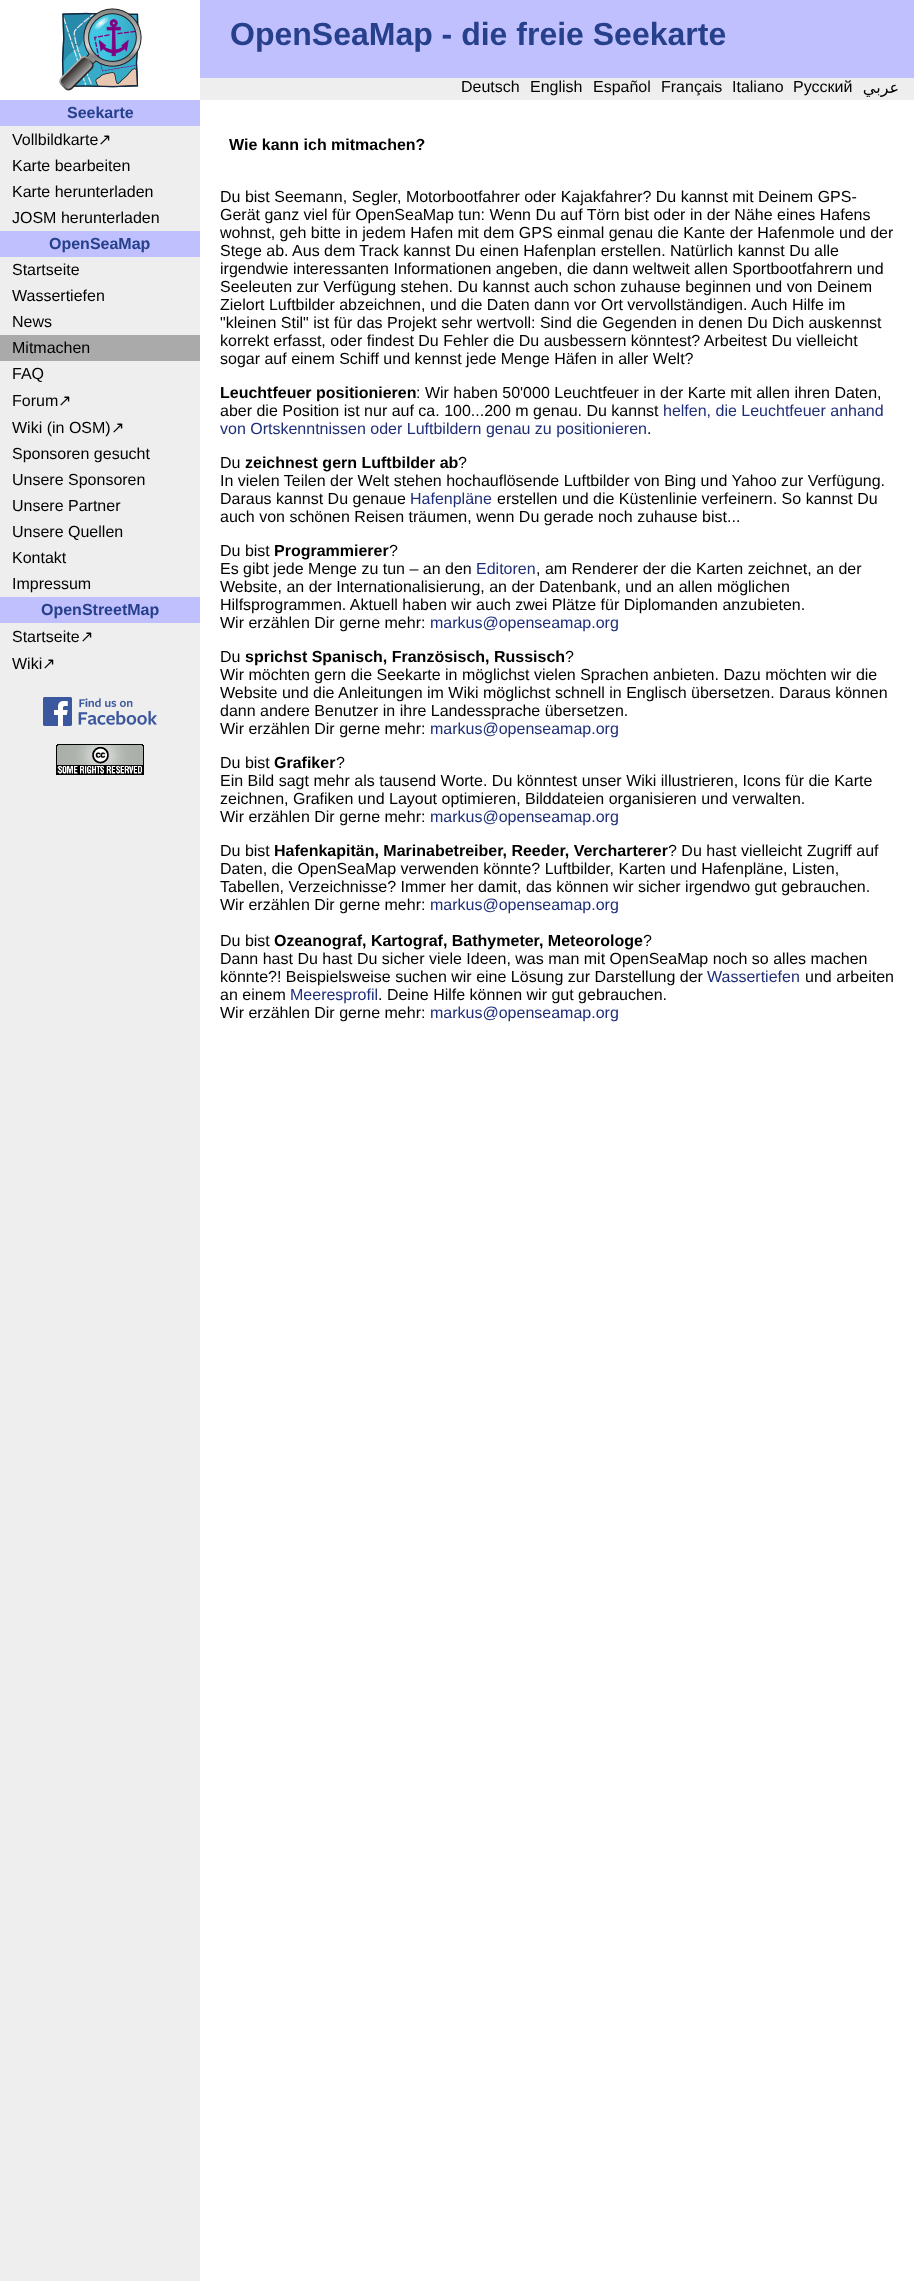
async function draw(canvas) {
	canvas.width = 914;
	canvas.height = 2281;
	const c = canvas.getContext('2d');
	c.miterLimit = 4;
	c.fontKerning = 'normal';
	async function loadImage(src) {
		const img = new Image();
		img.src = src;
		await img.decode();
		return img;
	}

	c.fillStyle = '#fff';
	c.fillRect(0, 0, 914, 2281);
	c.fillStyle = '#eee';
	c.fillRect(0, 126, 200, 2155);
	c.drawImage(await loadImage('img1.png'), 0, 0, 200, 100);
	c.fillStyle = '#c0c0ff';
	c.fillRect(200, 0, 714, 78);
	c.font = 'bold 32px Liberation Sans';
	c.fillStyle = '#27408b';
	c.fillText('OpenSeaMap - die freie Seekarte', 230, 45);
	c.fillStyle = '#eee';
	c.fillRect(200, 78, 714, 22);
	c.font = '16px Liberation Sans';
	c.fillStyle = '#000';
	for (const [text, x, y] of [
		['Deutsch', 461, 92],
		['English', 530, 92],
		['Español', 593, 92],
		['Français', 661, 92],
		['Italiano', 732, 92],
		['Русский', 793, 92],
	]) {
		c.fillText(text, x, y);
	}
	c.direction = 'rtl';
	c.font = '16px DejaVu Sans';
	c.fillText('عربي', 899, 93);
	c.fillStyle = '#c0c0ff';
	c.fillRect(0, 100, 200, 26);
	c.direction = 'ltr';
	c.font = 'bold 16px Liberation Sans';
	c.fillStyle = '#27408b';
	c.fillText('Seekarte', 67, 118);
	c.font = '16px Liberation Sans';
	c.fillStyle = '#000';
	c.fillText('Vollbildkarte', 12, 145);
	c.font = '16px DejaVu Sans';
	c.fillText('↗', 98, 145);
	c.font = '16px Liberation Sans';
	for (const [text, x, y] of [
		['Karte bearbeiten', 12, 171],
		['Karte herunterladen', 12, 197],
		['JOSM herunterladen', 12, 223],
	]) {
		c.fillText(text, x, y);
	}
	c.fillStyle = '#c0c0ff';
	c.fillRect(0, 231, 200, 26);
	c.font = 'bold 16px Liberation Sans';
	c.fillStyle = '#27408b';
	c.fillText('OpenSeaMap', 49, 249);
	c.font = '16px Liberation Sans';
	c.fillStyle = '#000';
	for (const [text, x, y] of [
		['Startseite', 12, 275],
		['Wassertiefen', 12, 301],
		['News', 12, 327],
	]) {
		c.fillText(text, x, y);
	}
	c.fillStyle = '#aaa';
	c.fillRect(0, 335, 200, 26);
	c.fillStyle = '#000';
	for (const [text, x, y] of [
		['Mitmachen', 12, 353],
		['FAQ', 12, 379],
		['Forum', 12, 406],
	]) {
		c.fillText(text, x, y);
	}
	c.font = '16px DejaVu Sans';
	c.fillText('↗', 58, 406);
	c.font = '16px Liberation Sans';
	c.fillText('Wiki (in OSM)', 12, 433);
	c.font = '16px DejaVu Sans';
	c.fillText('↗', 111, 433);
	c.font = '16px Liberation Sans';
	for (const [text, x, y] of [
		['Sponsoren gesucht', 12, 459],
		['Unsere Sponsoren', 12, 485],
		['Unsere Partner', 12, 511],
		['Unsere Quellen', 12, 537],
		['Kontakt', 12, 563],
		['Impressum', 12, 589],
	]) {
		c.fillText(text, x, y);
	}
	c.fillStyle = '#c0c0ff';
	c.fillRect(0, 597, 200, 26);
	c.font = 'bold 16px Liberation Sans';
	c.fillStyle = '#27408b';
	c.fillText('OpenStreetMap', 41, 615);
	c.font = '16px Liberation Sans';
	c.fillStyle = '#000';
	c.fillText('Startseite', 12, 642);
	c.font = '16px DejaVu Sans';
	c.fillText('↗', 80, 642);
	c.font = '16px Liberation Sans';
	c.fillText('Wiki', 12, 669);
	c.font = '16px DejaVu Sans';
	c.fillText('↗', 42, 669);
	c.drawImage(await loadImage('img2.png'), 43, 697, 114, 29);
	c.drawImage(await loadImage('img3.png'), 56, 744, 88, 31);
	c.font = 'bold 16px Liberation Sans';
	c.fillText('Wie kann ich mitmachen?', 229, 150);
	c.font = '16px Liberation Sans';
	for (const [text, x, y] of [
		['Du bist Seemann, Segler, Motorbootfahrer oder Kajakfahrer? Du kannst mit Deinem GPS-', 220, 202],
		['Gerät ganz viel für OpenSeaMap tun: Wenn Du auf Törn bist oder in der Nähe eines Hafens', 220, 220],
		['wohnst, geh bitte in jedem Hafen mit dem GPS einmal genau die Kante der Hafenmole und der', 220, 238],
		['Stege ab. Aus dem Track kannst Du einen Hafenplan erstellen. Natürlich kannst Du alle', 220, 256],
		['irgendwie interessanten Informationen angeben, die dann weltweit allen Sportbootfahrern und', 220, 274],
		['Seeleuten zur Verfügung stehen. Du kannst auch schon zuhause beginnen und von Deinem', 220, 292],
		['Zielort Luftbilder abzeichnen, und die Daten dann vor Ort vervollständigen. Auch Hilfe im', 220, 310],
		['"kleinen Stil" ist für das Projekt sehr wertvoll: Sind die Gegenden in denen Du Dich auskennst', 220, 328],
		['korrekt erfasst, oder findest Du Fehler die Du ausbessern könntest? Arbeitest Du vielleicht', 220, 346],
		['sogar auf einem Schiff und kennst jede Menge Häfen in aller Welt?', 220, 364],
	]) {
		c.fillText(text, x, y);
	}
	c.font = 'bold 16px Liberation Sans';
	c.fillText('Leuchtfeuer positionieren', 220, 398);
	c.font = '16px Liberation Sans';
	c.fillText(': Wir haben 50\'000 Leuchtfeuer in der Karte mit allen ihren Daten,', 416, 398);
	c.fillText('aber die Position ist nur auf ca. 100...200 m genau. Du kannst', 220, 416);
	c.fillStyle = '#1e2d78';
	c.fillText('helfen, die Leuchtfeuer anhand', 663, 416);
	c.fillText('von Ortskenntnissen oder Luftbildern genau zu positionieren', 220, 434);
	c.fillStyle = '#000';
	c.fillText('.', 647, 434);
	c.fillText('Du', 220, 468);
	c.font = 'bold 16px Liberation Sans';
	c.fillText('zeichnest gern Luftbilder ab', 245, 468);
	c.font = '16px Liberation Sans';
	for (const [text, x, y] of [
		['?', 458, 468],
		['In vielen Teilen der Welt stehen hochauflösende Luftbilder von Bing und Yahoo zur Verfügung.', 220, 486],
		['Daraus kannst Du genaue', 220, 504],
	]) {
		c.fillText(text, x, y);
	}
	c.fillStyle = '#1e2d78';
	c.fillText('Hafenpläne', 410, 504);
	c.fillStyle = '#000';
	for (const [text, x, y] of [
		['erstellen und die Küstenlinie verfeinern. So kannst Du', 497, 504],
		['auch von schönen Reisen träumen, wenn Du gerade noch zuhause bist...', 220, 522],
		['Du bist', 220, 556],
	]) {
		c.fillText(text, x, y);
	}
	c.font = 'bold 16px Liberation Sans';
	c.fillText('Programmierer', 274, 556);
	c.font = '16px Liberation Sans';
	c.fillText('?', 389, 556);
	c.fillText('Es gibt jede Menge zu tun – an den', 220, 574);
	c.fillStyle = '#1e2d78';
	c.fillText('Editoren', 476, 574);
	c.fillStyle = '#000';
	for (const [text, x, y] of [
		[', am Renderer der die Karten zeichnet, an der', 536, 574],
		['Website, an der Internationalisierung, an der Datenbank, und an allen möglichen', 220, 592],
		['Hilfsprogrammen. Aktuell haben wir auch zwei Plätze für Diplomanden anzubieten.', 220, 610],
		['Wir erzählen Dir gerne mehr:', 220, 628],
	]) {
		c.fillText(text, x, y);
	}
	c.fillStyle = '#1e2d78';
	c.fillText('markus@openseamap.org', 430, 628);
	c.fillStyle = '#000';
	c.fillText('Du', 220, 662);
	c.font = 'bold 16px Liberation Sans';
	c.fillText('sprichst Spanisch, Französisch, Russisch', 245, 662);
	c.font = '16px Liberation Sans';
	for (const [text, x, y] of [
		['?', 565, 662],
		['Wir möchten gern die Seekarte in möglichst vielen Sprachen anbieten. Dazu möchten wir die', 220, 680],
		['Website und die Anleitungen im Wiki möglichst schnell in Englisch übersetzen. Daraus können', 220, 698],
		['dann andere Benutzer in ihre Landessprache übersetzen.', 220, 716],
		['Wir erzählen Dir gerne mehr:', 220, 734],
	]) {
		c.fillText(text, x, y);
	}
	c.fillStyle = '#1e2d78';
	c.fillText('markus@openseamap.org', 430, 734);
	c.fillStyle = '#000';
	c.fillText('Du bist', 220, 768);
	c.font = 'bold 16px Liberation Sans';
	c.fillText('Grafiker', 274, 768);
	c.font = '16px Liberation Sans';
	for (const [text, x, y] of [
		['?', 336, 768],
		['Ein Bild sagt mehr als tausend Worte. Du könntest unser Wiki illustrieren, Icons für die Karte', 220, 786],
		['zeichnen, Grafiken und Layout optimieren, Bilddateien organisieren und verwalten.', 220, 804],
		['Wir erzählen Dir gerne mehr:', 220, 822],
	]) {
		c.fillText(text, x, y);
	}
	c.fillStyle = '#1e2d78';
	c.fillText('markus@openseamap.org', 430, 822);
	c.fillStyle = '#000';
	c.fillText('Du bist', 220, 856);
	c.font = 'bold 16px Liberation Sans';
	c.fillText('Hafenkapitän, Marinabetreiber, Reeder, Vercharterer', 274, 856);
	c.font = '16px Liberation Sans';
	for (const [text, x, y] of [
		['? Du hast vielleicht Zugriff auf', 668, 856],
		['Daten, die OpenSeaMap verwenden könnte? Luftbilder, Karten und Hafenpläne, Listen,', 220, 874],
		['Tabellen, Verzeichnisse? Immer her damit, das können wir sicher irgendwo gut gebrauchen.', 220, 892],
		['Wir erzählen Dir gerne mehr:', 220, 910],
	]) {
		c.fillText(text, x, y);
	}
	c.fillStyle = '#1e2d78';
	c.fillText('markus@openseamap.org', 430, 910);
	c.fillStyle = '#000';
	c.fillText('Du bist', 220, 946);
	c.font = 'bold 16px Liberation Sans';
	c.fillText('Ozeanograf, Kartograf, Bathymeter, Meteorologe', 274, 946);
	c.font = '16px Liberation Sans';
	for (const [text, x, y] of [
		['?', 643, 946],
		['Dann hast Du hast Du sicher viele Ideen, was man mit OpenSeaMap noch so alles machen', 220, 964],
		['könnte?! Beispielsweise suchen wir eine Lösung zur Darstellung der', 220, 982],
	]) {
		c.fillText(text, x, y);
	}
	c.fillStyle = '#1e2d78';
	c.fillText('Wassertiefen', 707, 982);
	c.fillStyle = '#000';
	c.fillText('und arbeiten', 805, 982);
	c.fillText('an einem', 220, 1000);
	c.fillStyle = '#1e2d78';
	c.fillText('Meeresprofil', 290, 1000);
	c.fillStyle = '#000';
	c.fillText('. Deine Hilfe können wir gut gebrauchen.', 378, 1000);
	c.fillText('Wir erzählen Dir gerne mehr:', 220, 1018);
	c.fillStyle = '#1e2d78';
	c.fillText('markus@openseamap.org', 430, 1018);
}

draw(document.querySelector('canvas'));
